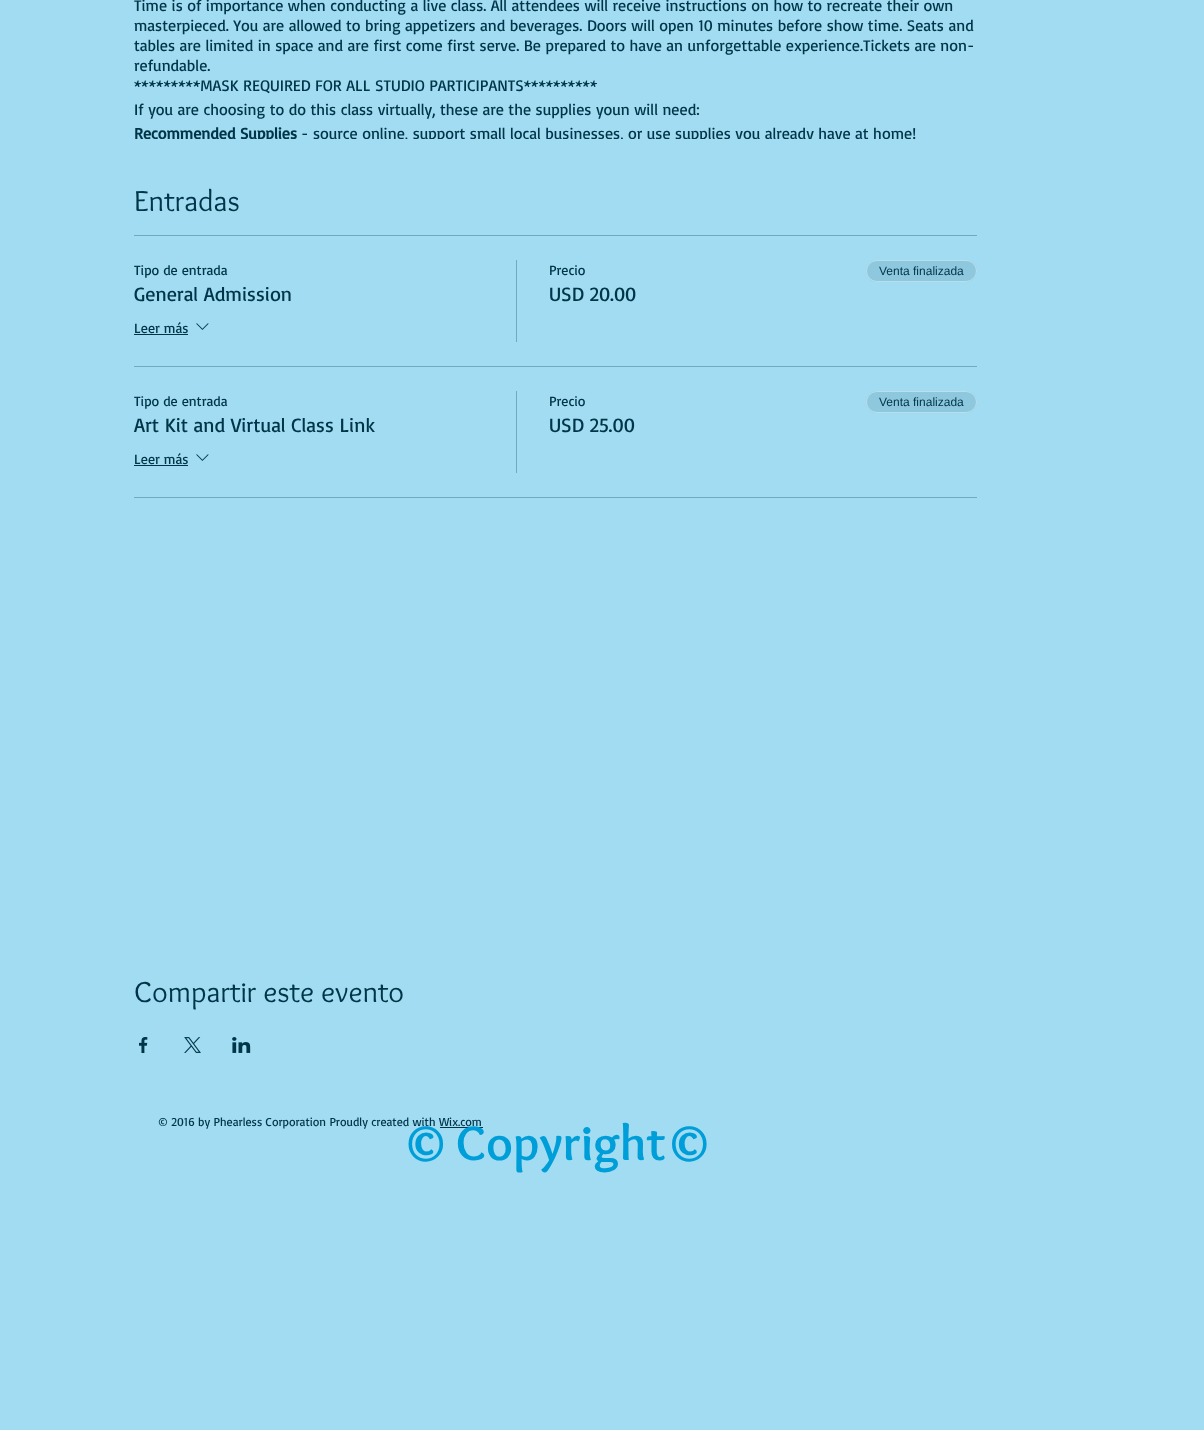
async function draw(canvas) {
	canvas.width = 1204;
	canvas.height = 1430;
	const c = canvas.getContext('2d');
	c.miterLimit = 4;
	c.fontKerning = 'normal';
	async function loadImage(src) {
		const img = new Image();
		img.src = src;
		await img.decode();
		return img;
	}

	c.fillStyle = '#a1dcf2';
	c.fillRect(0, 0, 1204, 1430);
	c.font = '16px Basic';
	c.fillStyle = '#003448';
	for (const [text, x, y] of [
		['Time is of importance when conducting a live class. All attendees will receive instructions on how to recreate their own', 134, 11],
		['masterpieced. You are allowed to bring appetizers and beverages. Doors will open 10 minutes before show time. Seats and', 134, 31],
		['tables are limited in space and are first come first serve. Be prepared to have an unforgettable experience.Tickets are non-', 134, 51],
		['refundable.', 134, 71],
		['*********MASK REQUIRED FOR ALL STUDIO PARTICIPANTS**********', 134, 91],
		['If you are choosing to do this class virtually, these are the supplies youn will need:', 134, 115],
	]) {
		c.fillText(text, x, y);
	}
	c.save();
	c.beginPath();
	c.rect(134, 0, 843, 139);
	c.clip();
	c.font = 'bold 16px Basic';
	c.fillText('Recommended Supplies', 134, 139);
	c.font = '16px Basic';
	c.fillText('- source online, support small local businesses, or use supplies you already have at home!', 301, 139);
	c.restore();
	c.font = '30px Overlock';
	c.fillText('Entradas', 134, 211);
	c.fillStyle = '#71aabf';
	c.fillRect(134, 235, 843, 1);
	c.fillRect(134, 366, 843, 1);
	c.font = '14px Basic';
	c.fillStyle = '#003448';
	c.fillText('Tipo de entrada', 134, 275);
	c.font = '20px Basic';
	c.fillText('General Admission', 134, 301);
	c.font = '14px Basic';
	c.fillText('Leer más', 134, 333);
	c.fillRect(134, 334, 54, 1);
	c.drawImage(await loadImage('img1.png'), 196, 323, 13, 7);
	c.fillStyle = '#71aabf';
	c.fillRect(516, 260, 1, 82);
	c.fillStyle = '#003448';
	c.fillText('Precio', 549, 275);
	c.font = '20px Basic';
	c.fillText('USD 20.00', 549, 301);
	c.fillStyle = '#8ec8de';
	c.beginPath();
	c.roundRect(866, 260, 111, 22, 11);
	c.fill();
	c.beginPath();
	c.roundRect(866.5, 260.5, 110, 21, 10.5);
	c.strokeStyle = '#ffffff66';
	c.stroke();
	c.font = '12px Liberation Sans';
	c.fillStyle = '#003448';
	c.fillText('Venta finalizada', 879, 275);
	c.fillStyle = '#71aabf';
	c.fillRect(134, 497, 843, 1);
	c.font = '14px Basic';
	c.fillStyle = '#003448';
	c.fillText('Tipo de entrada', 134, 406);
	c.font = '20px Basic';
	c.fillText('Art Kit and Virtual Class Link', 134, 432);
	c.font = '14px Basic';
	c.fillText('Leer más', 134, 464);
	c.fillRect(134, 465, 54, 1);
	c.drawImage(await loadImage('img1.png'), 196, 454, 13, 7);
	c.fillStyle = '#71aabf';
	c.fillRect(516, 391, 1, 82);
	c.fillStyle = '#003448';
	c.fillText('Precio', 549, 406);
	c.font = '20px Basic';
	c.fillText('USD 25.00', 549, 432);
	c.fillStyle = '#8ec8de';
	c.beginPath();
	c.roundRect(866, 391, 111, 22, 11);
	c.fill();
	c.beginPath();
	c.roundRect(866.5, 391.5, 110, 21, 10.5);
	c.stroke();
	c.font = '12px Liberation Sans';
	c.fillStyle = '#003448';
	c.fillText('Venta finalizada', 879, 406);
	c.font = '30px Overlock';
	c.fillText('Compartir este evento', 134, 1002);
	c.drawImage(await loadImage('img2.png'), 139, 1037, 9, 16);
	c.drawImage(await loadImage('img3.png'), 184, 1037, 17, 16);
	c.drawImage(await loadImage('img4.png'), 232, 1037, 19, 16);
	c.font = '12px Basic';
	c.fillText('© 2016 by Phearless Corporation Proudly created with Wix.com', 158, 1126);
	c.fillRect(440, 1127, 43, 1);
	c.font = 'bold 50px Overlock';
	c.fillStyle = '#009ed8';
	c.fillText('© Copyright©', 402, 1160);
}

draw(document.querySelector('canvas'));
